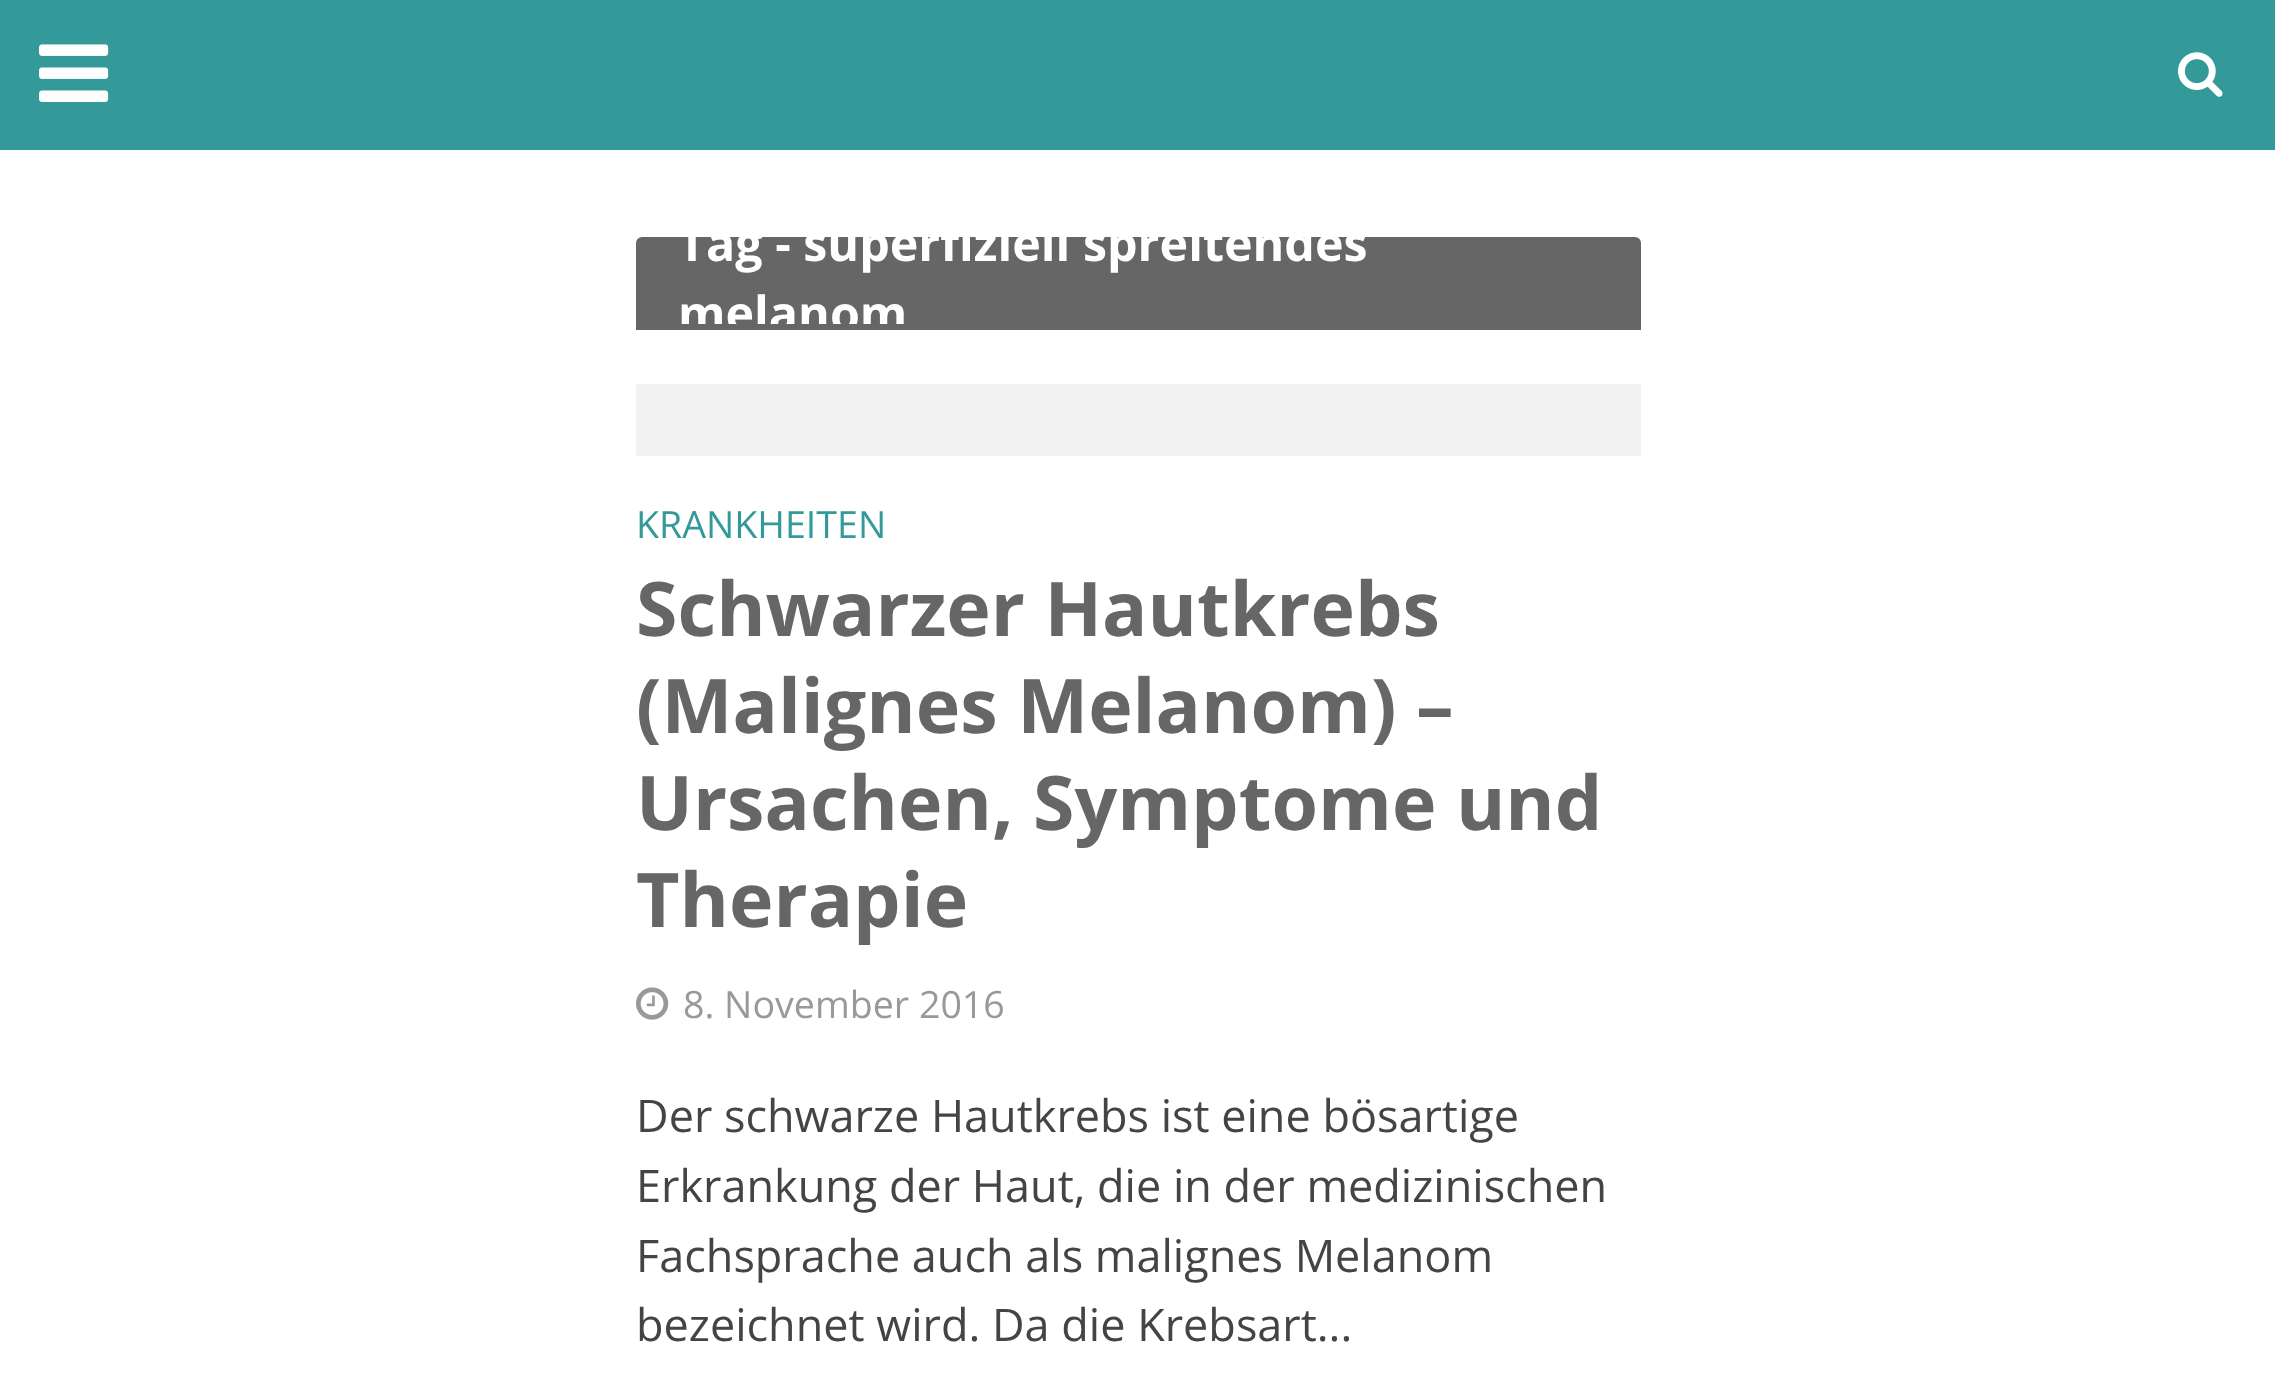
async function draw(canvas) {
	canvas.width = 2275;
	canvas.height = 1392;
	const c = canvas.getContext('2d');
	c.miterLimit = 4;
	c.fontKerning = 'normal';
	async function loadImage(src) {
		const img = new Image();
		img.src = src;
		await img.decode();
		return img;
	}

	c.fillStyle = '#fff';
	c.fillRect(0, 0, 2275, 1392);
	c.fillStyle = '#399';
	c.fillRect(0, 0, 2275, 150);
	c.drawImage(await loadImage('img1.png'), 39, 44, 70, 58);
	c.drawImage(await loadImage('img2.png'), 2178, 52, 45, 45);
	c.fillStyle = '#666';
	c.beginPath();
	c.roundRect(636, 237, 1005, 87, [6, 6, 0, 0]);
	c.fill();
	c.font = 'bold 48.4px Open Sans';
	c.fillStyle = '#fff';
	c.fillText('Tag - superfiziell spreitendes', 678, 261);
	c.fillText('melanom', 678, 331);
	c.fillStyle = '#666';
	c.fillRect(636, 324, 1005, 6);
	c.fillStyle = '#f2f2f2';
	c.fillRect(636, 384, 1005, 72);
	c.font = '37.6px Open Sans';
	c.fillStyle = '#399';
	c.fillText('KRANKHEITEN', 636, 538);
	c.font = 'bold 75.25px Open Sans';
	c.fillStyle = '#666';
	for (const [text, x, y] of [
		['Schwarzer Hautkrebs', 636, 636],
		['(Malignes Melanom) –', 636, 733],
		['Ursachen, Symptome und', 636, 830],
		['Therapie', 636, 927],
	]) {
		c.fillText(text, x, y);
	}
	c.drawImage(await loadImage('img3.png'), 636, 987, 33, 33);
	c.font = '37.6px Open Sans';
	c.fillStyle = '#999';
	c.fillText('8. November 2016', 683, 1018);
	c.font = '45px Open Sans';
	c.fillStyle = '#444';
	for (const [text, x, y] of [
		['Der schwarze Hautkrebs ist eine bösartige', 636, 1132],
		['Erkrankung der Haut, die in der medizinischen', 636, 1202],
		['Fachsprache auch als malignes Melanom', 636, 1272],
		['bezeichnet wird. Da die Krebsart...', 636, 1341],
	]) {
		c.fillText(text, x, y);
	}
}

draw(document.querySelector('canvas'));
